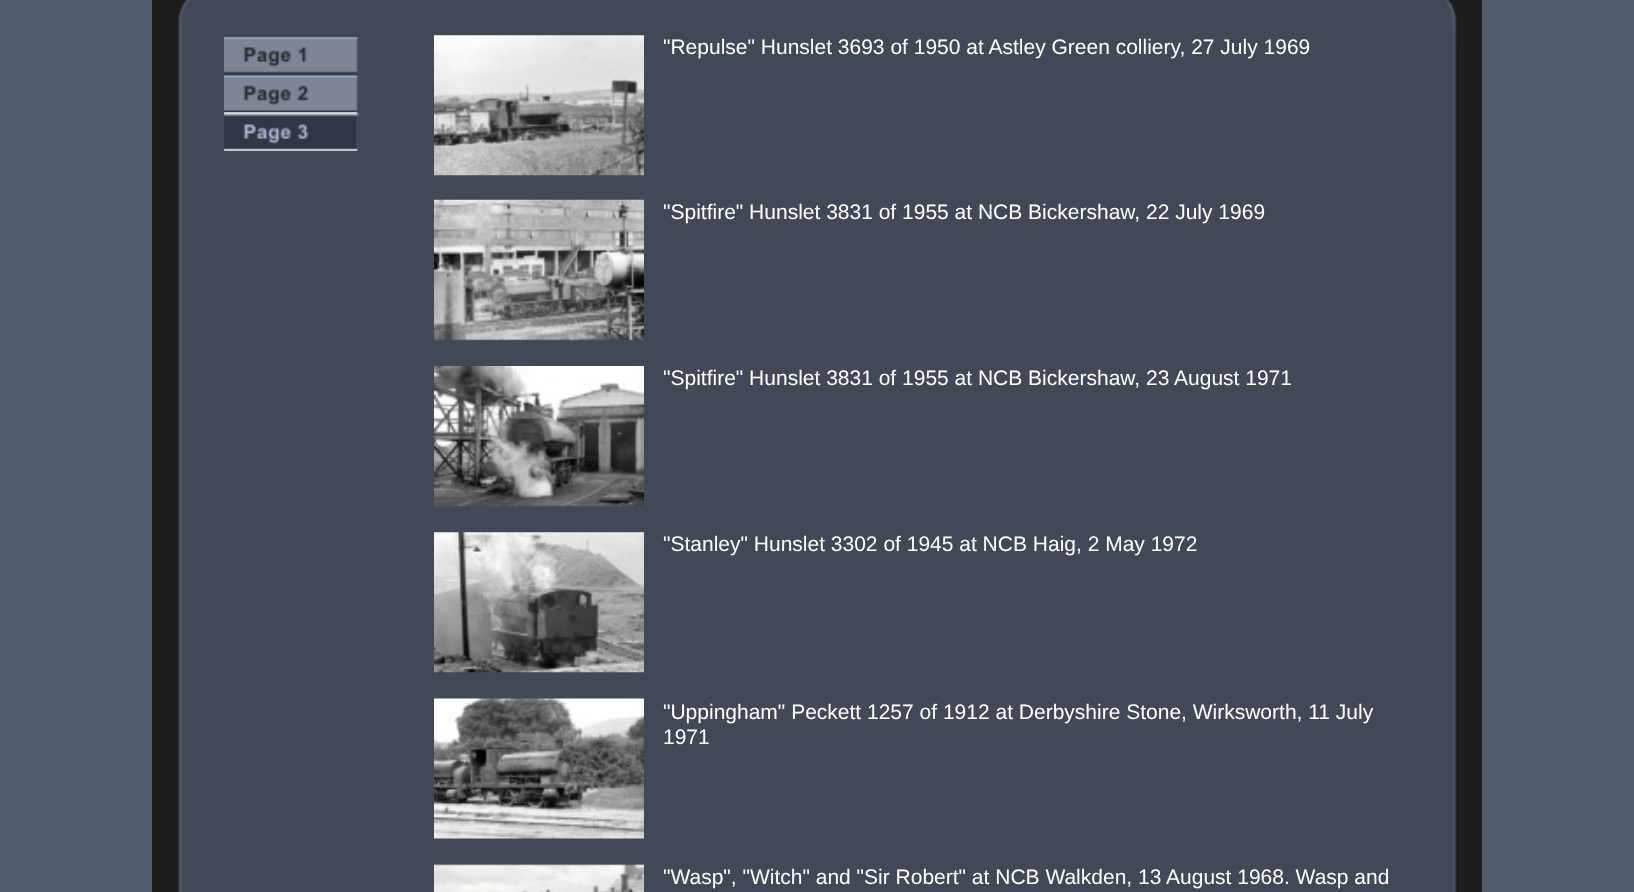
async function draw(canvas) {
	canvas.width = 1634;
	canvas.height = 892;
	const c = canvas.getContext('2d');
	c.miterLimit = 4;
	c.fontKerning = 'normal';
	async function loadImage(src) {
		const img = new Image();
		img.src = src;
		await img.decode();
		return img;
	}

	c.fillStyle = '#535c6f';
	c.fillRect(0, 0, 1634, 892);
	c.fillStyle = '#1d1d1d';
	c.fillRect(152, 0, 1330, 892);
	c.drawImage(await loadImage('img1.png'), 178, 0, 1280, 892);
	c.drawImage(await loadImage('img2.png'), 224, 35, 135, 39);
	c.drawImage(await loadImage('img3.png'), 434, 35, 210, 141);
	c.font = '21px Liberation Sans';
	c.fillStyle = '#fff';
	c.fillText('"Repulse" Hunslet 3693 of 1950 at Astley Green colliery, 27 July 1969', 663, 54);
	c.drawImage(await loadImage('img4.png'), 224, 74, 135, 39);
	c.drawImage(await loadImage('img5.png'), 224, 112, 135, 39);
	c.drawImage(await loadImage('img6.png'), 224, 112, 135, 39);
	c.drawImage(await loadImage('img7.png'), 434, 199, 210, 142);
	c.fillText('"Spitfire" Hunslet 3831 of 1955 at NCB Bickershaw, 22 July 1969', 663, 219);
	c.drawImage(await loadImage('img8.png'), 434, 366, 210, 141);
	c.fillText('"Spitfire" Hunslet 3831 of 1955 at NCB Bickershaw, 23 August 1971', 663, 385);
	c.drawImage(await loadImage('img9.png'), 434, 532, 210, 141);
	c.fillText('"Stanley" Hunslet 3302 of 1945 at NCB Haig, 2 May 1972', 663, 551);
	c.drawImage(await loadImage('img10.png'), 434, 698, 210, 141);
	c.fillText('"Uppingham" Peckett 1257 of 1912 at Derbyshire Stone, Wirksworth, 11 July', 663, 719);
	c.fillText('1971', 663, 744);
	c.drawImage(await loadImage('img11.png'), 434, 863, 210, 29);
	c.fillText('"Wasp", "Witch" and "Sir Robert" at NCB Walkden, 13 August 1968. Wasp and', 663, 884);
}

draw(document.querySelector('canvas'));
